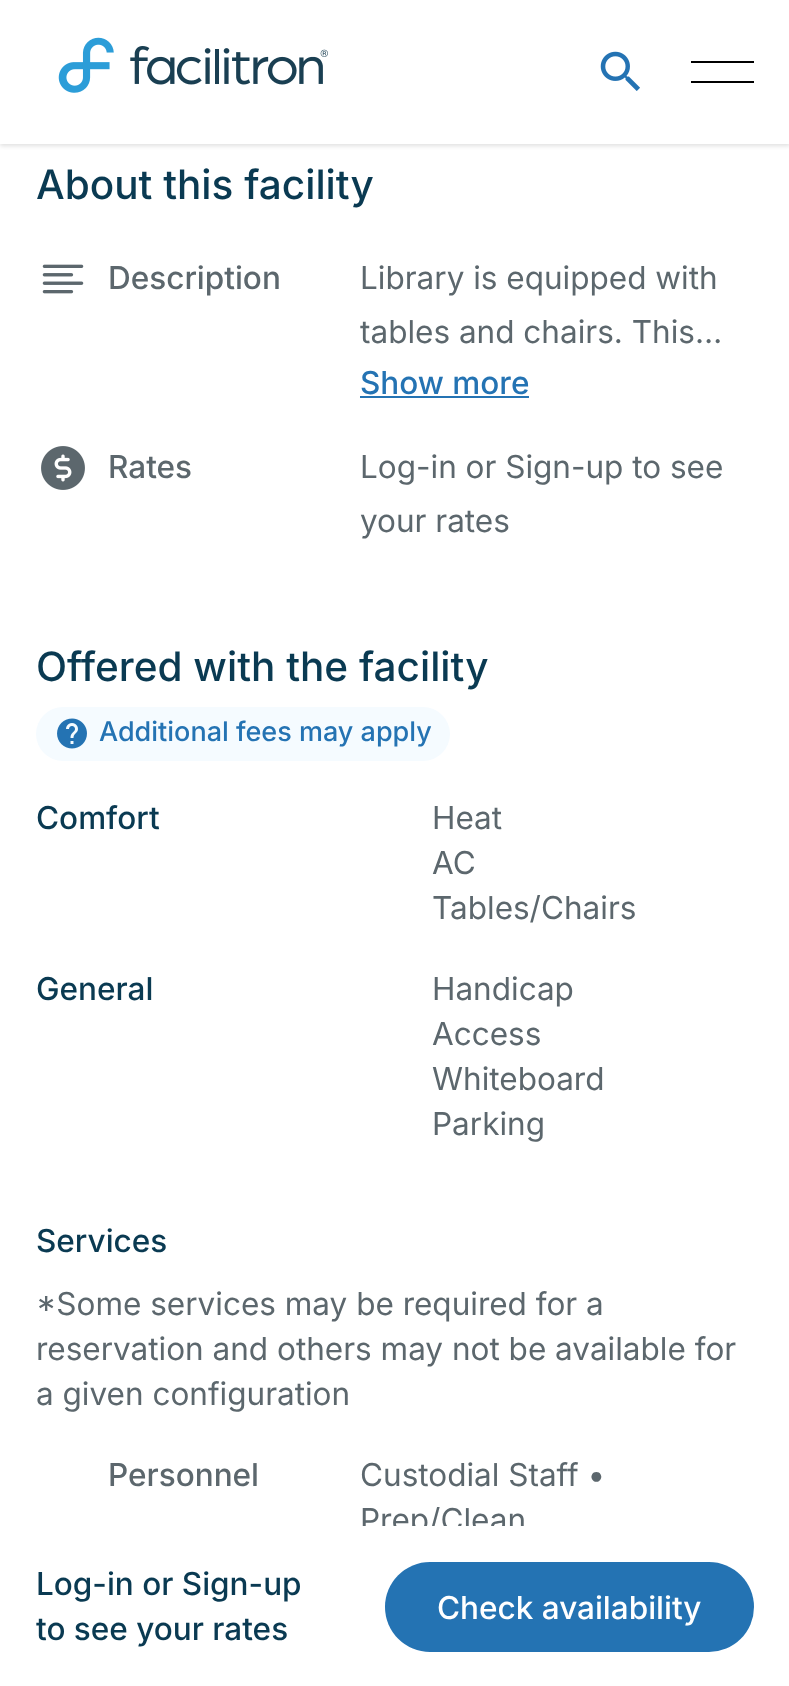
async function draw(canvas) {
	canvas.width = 789;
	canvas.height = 1686;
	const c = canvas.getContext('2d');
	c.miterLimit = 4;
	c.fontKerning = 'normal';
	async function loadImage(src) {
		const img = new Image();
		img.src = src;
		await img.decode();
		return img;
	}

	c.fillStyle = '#fff';
	c.fillRect(0, 0, 789, 1686);
	c.fillStyle = '#0000001f';
	c.filter = 'blur(2px)';
	c.beginPath();
	c.rect(0, 2, 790, 144);
	c.fill();
	c.filter = 'none';
	c.fillStyle = '#fff';
	c.fillRect(0, 0, 789, 144);
	c.drawImage(await loadImage('img1.png'), 58, 37, 270, 56);
	c.drawImage(await loadImage('img2.png'), 600, 51, 40, 40);
	c.fillStyle = '#000';
	c.fillRect(691, 61, 63, 2);
	c.fillRect(691, 81, 63, 2);
	c.font = '500 40.5px Inter';
	c.fillStyle = '#0a3a52';
	c.fillText('About this facility', 36, 199);
	c.drawImage(await loadImage('img3.png'), 42, 264, 42, 30);
	c.font = '500 31.5px Inter';
	c.fillStyle = '#5c676d';
	c.fillText('Description', 108, 289);
	c.font = '31.5px Inter';
	c.fillText('Library is equipped with', 360, 289);
	c.fillText('tables and chairs. This…', 360, 343);
	c.font = '500 31.5px Inter';
	c.fillStyle = '#2473b3';
	c.fillText('Show more', 360, 394);
	c.fillRect(360, 396, 169, 2);
	c.drawImage(await loadImage('img4.png'), 41, 446, 44, 44);
	c.fillStyle = '#5c676d';
	c.fillText('Rates', 108, 478);
	c.font = '31.5px Inter';
	c.fillText('Log-in or Sign-up to see', 360, 478);
	c.fillText('your rates', 360, 532);
	c.font = '500 40.5px Inter';
	c.fillStyle = '#0a3a52';
	c.fillText('Offered with the facility', 36, 681);
	c.fillStyle = '#f5fbff';
	c.beginPath();
	c.roundRect(36, 707, 414, 54, 27);
	c.fill();
	c.drawImage(await loadImage('img5.png'), 57, 718, 30, 31);
	c.font = '500 27px Inter';
	c.fillStyle = '#2473b3';
	c.fillText('Additional fees may apply', 99, 741);
	c.font = '500 31.5px Inter';
	c.fillStyle = '#0a3a52';
	c.fillText('Comfort', 36, 829);
	c.font = '31.5px Inter';
	c.fillStyle = '#5c676d';
	for (const [text, x, y] of [
		['Heat', 432, 829],
		['AC', 432, 874],
		['Tables/Chairs', 432, 919],
	]) {
		c.fillText(text, x, y);
	}
	c.font = '500 31.5px Inter';
	c.fillStyle = '#0a3a52';
	c.fillText('General', 36, 1000);
	c.font = '31.5px Inter';
	c.fillStyle = '#5c676d';
	for (const [text, x, y] of [
		['Handicap', 432, 1000],
		['Access', 432, 1045],
		['Whiteboard', 432, 1090],
		['Parking', 432, 1135],
	]) {
		c.fillText(text, x, y);
	}
	c.font = '500 31.5px Inter';
	c.fillStyle = '#0a3a52';
	c.fillText('Services', 36, 1252);
	c.font = '31.5px Inter';
	c.fillStyle = '#5c676d';
	for (const [text, x, y] of [
		['*Some services may be required for a', 36, 1315],
		['reservation and others may not be available for', 36, 1360],
		['a given configuration', 36, 1405],
	]) {
		c.fillText(text, x, y);
	}
	c.font = '500 31.5px Inter';
	c.fillText('Personnel', 108, 1486);
	c.font = '31.5px Inter';
	c.fillText('Custodial Staff •', 360, 1486);
	c.fillText('Prep/Clean', 360, 1531);
	c.fillStyle = '#fff';
	c.fillRect(362, 1526, 162, 12);
	c.font = '500 31.5px Inter';
	c.fillStyle = '#0a3a52';
	c.fillText('Log-in or Sign-up', 36, 1595);
	c.fillText('to see your rates', 36, 1640);
	c.fillStyle = '#2473b3';
	c.beginPath();
	c.roundRect(385, 1562, 369, 90, 45);
	c.fill();
	c.fillStyle = '#fff';
	c.fillText('Check availability', 437, 1619);
}

draw(document.querySelector('canvas'));
